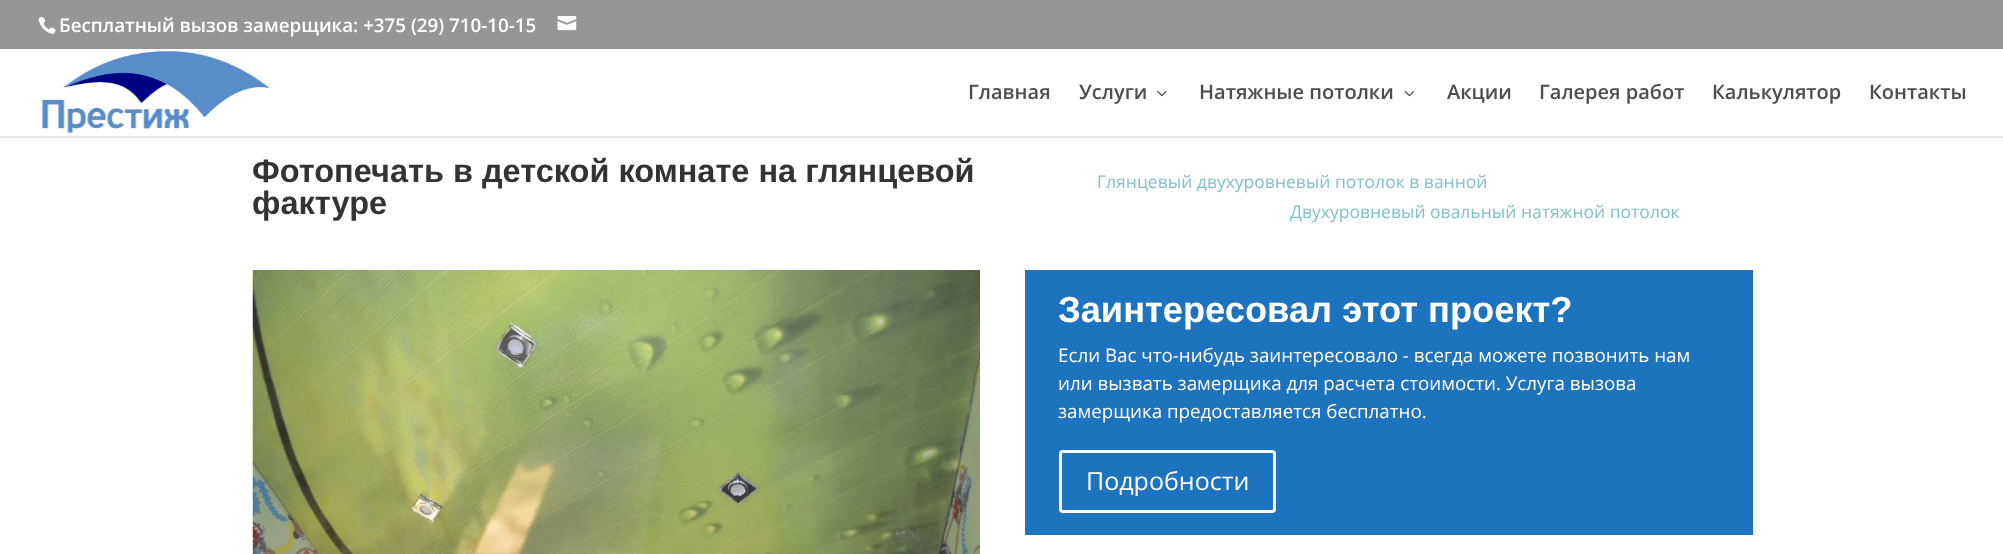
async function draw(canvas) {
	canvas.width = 2003;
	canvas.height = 554;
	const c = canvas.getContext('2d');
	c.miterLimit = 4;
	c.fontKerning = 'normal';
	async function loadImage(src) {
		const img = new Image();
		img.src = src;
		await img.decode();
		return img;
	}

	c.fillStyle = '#fff';
	c.fillRect(0, 0, 2003, 554);
	c.fillStyle = '#969696';
	c.fillRect(0, 0, 2003, 49);
	c.drawImage(await loadImage('img1.png'), 38, 17, 18, 18);
	c.font = '600 18.75px Open Sans';
	c.fillStyle = '#fff';
	c.fillText('Бесплатный вызов замерщика: +375 (29) 710-10-15', 59, 32);
	c.drawImage(await loadImage('img2.png'), 557, 16, 20, 15);
	c.fillStyle = '#e6e6e6';
	c.beginPath();
	c.moveTo(0, 136);
	c.lineTo(0, 138);
	c.lineTo(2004, 138);
	c.lineTo(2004, 50);
	c.lineTo(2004, 136);
	c.closePath();
	c.fill();
	c.drawImage(await loadImage('img3.png'), 42, 51, 228, 82);
	c.font = '600 20px Open Sans';
	c.fillStyle = '#4d4d4d';
	c.fillText('Главная', 968, 99);
	c.fillText('Услуги', 1079, 99);
	c.drawImage(await loadImage('img4.png'), 1157, 91, 10, 6);
	c.fillText('Натяжные потолки', 1199, 99);
	c.drawImage(await loadImage('img5.png'), 1404, 91, 10, 6);
	for (const [text, x, y] of [
		['Акции', 1447, 99],
		['Галерея работ', 1539, 99],
		['Калькулятор', 1712, 99],
		['Контакты', 1869, 99],
	]) {
		c.fillText(text, x, y);
	}
	c.font = 'bold 32.5px Arimo';
	c.fillStyle = '#333';
	c.fillText('Фотопечать в детской комнате на глянцевой', 252, 182);
	c.fillText('фактуре', 252, 214);
	c.font = '17.5px Open Sans';
	c.fillStyle = '#82c0c7';
	c.fillText('Глянцевый двухуровневый потолок в ванной', 1097, 188);
	c.fillText('Двухуровневый овальный натяжной потолок', 1290, 218);
	c.drawImage(await loadImage('img6.png'), 252, 270, 728, 284);
	c.fillStyle = '#1e73be';
	c.fillRect(1025, 270, 728, 265);
	c.font = 'bold 36.25px Arimo';
	c.fillStyle = '#fff';
	c.fillText('Заинтересовал этот проект?', 1058, 322);
	c.font = '18.75px Open Sans';
	for (const [text, x, y] of [
		['Если Вас что-нибудь заинтересовало - всегда можете позвонить нам', 1058, 362],
		['или вызвать замерщика для расчета стоимости. Услуга вызова', 1058, 390],
		['замерщика предоставляется бесплатно.', 1058, 418],
	]) {
		c.fillText(text, x, y);
	}
	c.beginPath();
	c.roundRect(1060.5, 451.5, 214, 60, 2.5);
	c.strokeStyle = '#fff';
	c.lineWidth = 3;
	c.stroke();
	c.font = '25px Open Sans';
	c.fillText('Подробности', 1086, 490);
}

draw(document.querySelector('canvas'));
